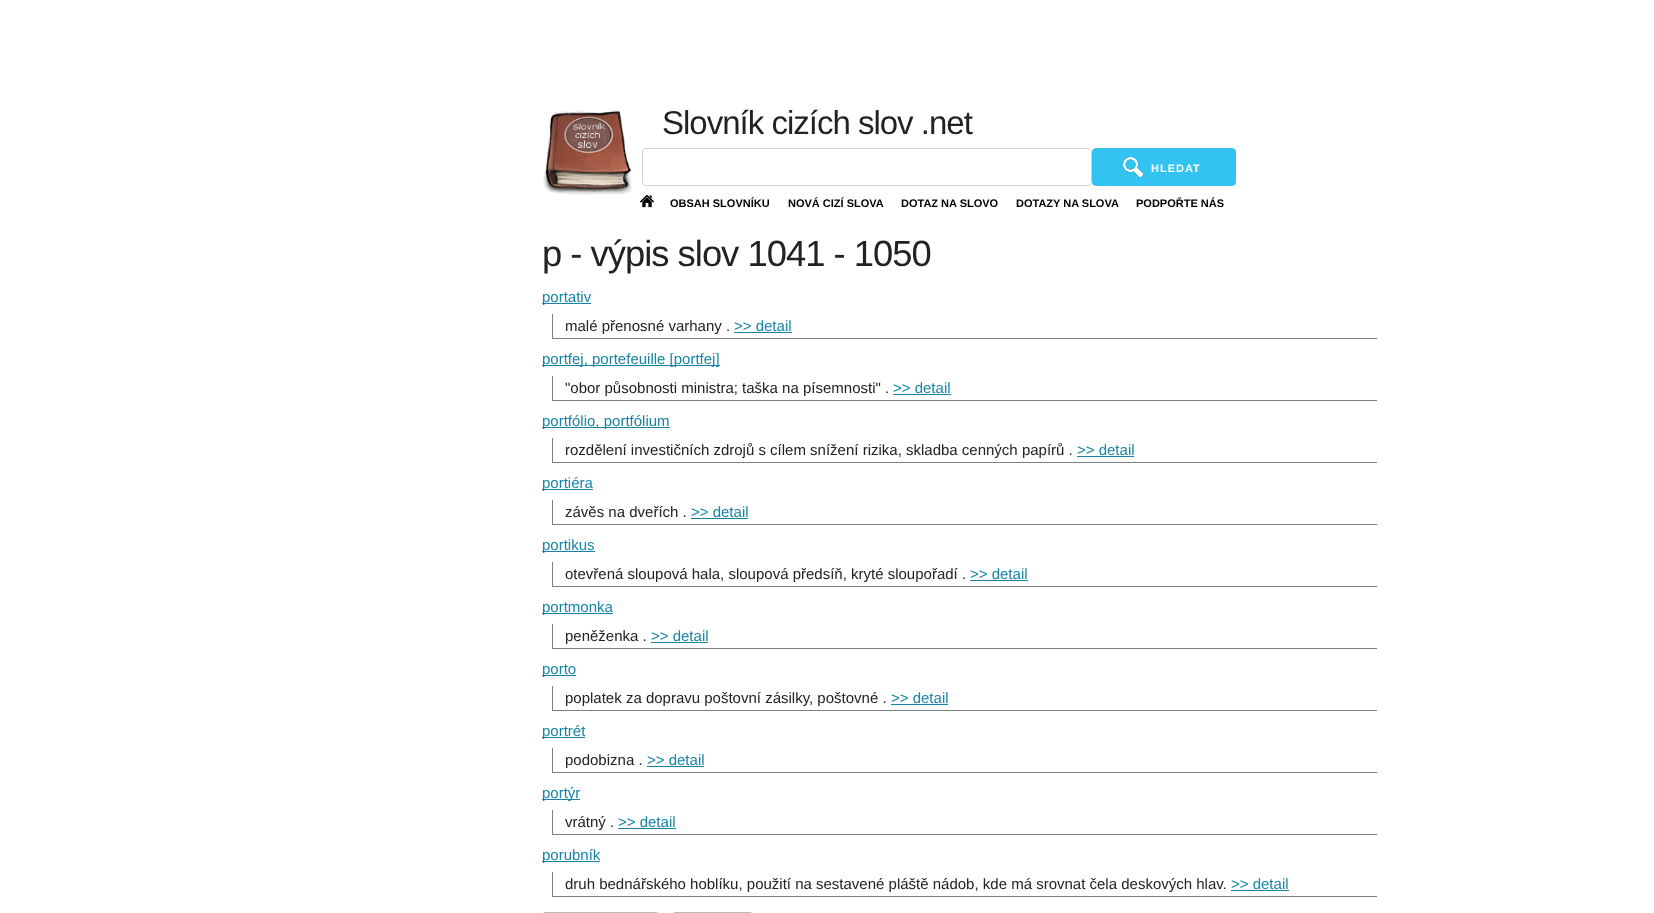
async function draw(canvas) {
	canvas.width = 1654;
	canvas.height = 913;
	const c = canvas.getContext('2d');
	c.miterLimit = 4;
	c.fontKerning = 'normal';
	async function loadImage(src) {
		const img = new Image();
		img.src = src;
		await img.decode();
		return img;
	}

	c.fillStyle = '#fff';
	c.fillRect(0, 0, 1654, 913);
	c.drawImage(await loadImage('img1.png'), 543, 110, 89, 85);
	c.letterSpacing = '-1px';
	c.font = '33px Liberation Sans';
	c.fillStyle = '#222';
	c.fillText('Slovník cizích slov .net', 662, 134);
	c.beginPath();
	c.roundRect(642.5, 148.5, 449, 37, 3.5);
	c.strokeStyle = '#d1d1d1';
	c.stroke();
	c.fillStyle = '#33c3f0';
	c.beginPath();
	c.roundRect(1092.5, 148.5, 143, 37, 3.5);
	c.fill();
	c.strokeStyle = '#33c3f0';
	c.stroke();
	c.drawImage(await loadImage('img2.png'), 1123, 157, 20, 20);
	c.letterSpacing = '1px';
	c.font = 'bold 11px Liberation Sans';
	c.fillStyle = '#fff';
	c.fillText('HLEDAT', 1151, 172);
	c.drawImage(await loadImage('img3.png'), 640, 195, 14, 13);
	c.letterSpacing = '0px';
	c.fillStyle = '#000';
	for (const [text, x, y] of [
		['OBSAH SLOVNÍKU', 670, 207],
		['NOVÁ CIZÍ SLOVA', 788, 207],
		['DOTAZ NA SLOVO', 901, 207],
		['DOTAZY NA SLOVA', 1016, 207],
		['PODPOŘTE NÁS', 1136, 207],
	]) {
		c.fillText(text, x, y);
	}
	c.letterSpacing = '-1px';
	c.font = '36.4px Liberation Sans';
	c.fillStyle = '#222';
	c.fillText('p - výpis slov 1041 - 1050', 542, 266);
	c.fillStyle = '#1784a5';
	c.fillRect(542, 303, 49, 1);
	c.letterSpacing = '0px';
	c.font = '15px Liberation Sans';
	c.fillText('portativ', 542, 302);
	c.fillStyle = '#808080';
	c.fillRect(552, 338, 825, 1);
	c.fillRect(552, 314, 1, 25);
	c.fillStyle = '#222';
	c.fillText('malé přenosné varhany .', 565, 331);
	c.fillStyle = '#1784a5';
	c.fillText('>> detail', 734, 331);
	c.fillRect(734, 332, 58, 1);
	c.fillRect(542, 365, 178, 1);
	c.fillText('portfej, portefeuille [portfej]', 542, 364);
	c.fillStyle = '#808080';
	c.fillRect(552, 400, 825, 1);
	c.fillRect(552, 376, 1, 25);
	c.fillStyle = '#222';
	c.fillText('"obor působnosti ministra; taška na písemnosti" .', 565, 393);
	c.fillStyle = '#1784a5';
	c.fillText('>> detail', 893, 393);
	c.fillRect(893, 394, 58, 1);
	c.fillRect(542, 427, 128, 1);
	c.fillText('portfólio, portfólium', 542, 426);
	c.fillStyle = '#808080';
	c.fillRect(552, 462, 825, 1);
	c.fillRect(552, 438, 1, 25);
	c.fillStyle = '#222';
	c.fillText('rozdělení investičních zdrojů s cílem snížení rizika, skladba cenných papírů .', 565, 455);
	c.fillStyle = '#1784a5';
	c.fillText('>> detail', 1077, 455);
	c.fillRect(1077, 456, 57, 1);
	c.fillRect(542, 489, 51, 1);
	c.fillText('portiéra', 542, 488);
	c.fillStyle = '#808080';
	c.fillRect(552, 524, 825, 1);
	c.fillRect(552, 500, 1, 25);
	c.fillStyle = '#222';
	c.fillText('závěs na dveřích .', 565, 517);
	c.fillStyle = '#1784a5';
	c.fillText('>> detail', 691, 517);
	c.fillRect(691, 518, 57, 1);
	c.fillRect(542, 551, 53, 1);
	c.fillText('portikus', 542, 550);
	c.fillStyle = '#808080';
	c.fillRect(552, 586, 825, 1);
	c.fillRect(552, 562, 1, 25);
	c.fillStyle = '#222';
	c.fillText('otevřená sloupová hala, sloupová předsíň, kryté sloupořadí .', 565, 579);
	c.fillStyle = '#1784a5';
	c.fillText('>> detail', 970, 579);
	c.fillRect(970, 580, 58, 1);
	c.fillRect(542, 613, 71, 1);
	c.fillText('portmonka', 542, 612);
	c.fillStyle = '#808080';
	c.fillRect(552, 648, 825, 1);
	c.fillRect(552, 624, 1, 25);
	c.fillStyle = '#222';
	c.fillText('peněženka .', 565, 641);
	c.fillStyle = '#1784a5';
	c.fillText('>> detail', 651, 641);
	c.fillRect(651, 642, 57, 1);
	c.fillRect(542, 675, 34, 1);
	c.fillText('porto', 542, 674);
	c.fillStyle = '#808080';
	c.fillRect(552, 710, 825, 1);
	c.fillRect(552, 686, 1, 25);
	c.fillStyle = '#222';
	c.fillText('poplatek za dopravu poštovní zásilky, poštovné .', 565, 703);
	c.fillStyle = '#1784a5';
	c.fillText('>> detail', 891, 703);
	c.fillRect(891, 704, 57, 1);
	c.fillRect(542, 737, 43, 1);
	c.fillText('portrét', 542, 736);
	c.fillStyle = '#808080';
	c.fillRect(552, 772, 825, 1);
	c.fillRect(552, 748, 1, 25);
	c.fillStyle = '#222';
	c.fillText('podobizna .', 565, 765);
	c.fillStyle = '#1784a5';
	c.fillText('>> detail', 647, 765);
	c.fillRect(647, 766, 57, 1);
	c.fillRect(542, 799, 38, 1);
	c.fillText('portýr', 542, 798);
	c.fillStyle = '#808080';
	c.fillRect(552, 834, 825, 1);
	c.fillRect(552, 810, 1, 25);
	c.fillStyle = '#222';
	c.fillText('vrátný .', 565, 827);
	c.fillStyle = '#1784a5';
	c.fillText('>> detail', 618, 827);
	c.fillRect(618, 828, 58, 1);
	c.fillRect(542, 861, 58, 1);
	c.fillText('porubník', 542, 860);
	c.fillStyle = '#808080';
	c.fillRect(552, 896, 825, 1);
	c.fillRect(552, 872, 1, 25);
	c.fillStyle = '#222';
	c.fillText('druh bednářského hoblíku, použití na sestavené pláště nádob, kde má srovnat čela deskových hlav.', 565, 889);
	c.fillStyle = '#1784a5';
	c.fillText('>> detail', 1231, 889);
	c.fillRect(1231, 890, 58, 1);
	c.beginPath();
	c.roundRect(542.5, 912.5, 116, 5, 3.5);
	c.strokeStyle = '#bbb';
	c.stroke();
	c.beginPath();
	c.roundRect(672.5, 912.5, 80, 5, 3.5);
	c.stroke();
}

draw(document.querySelector('canvas'));
